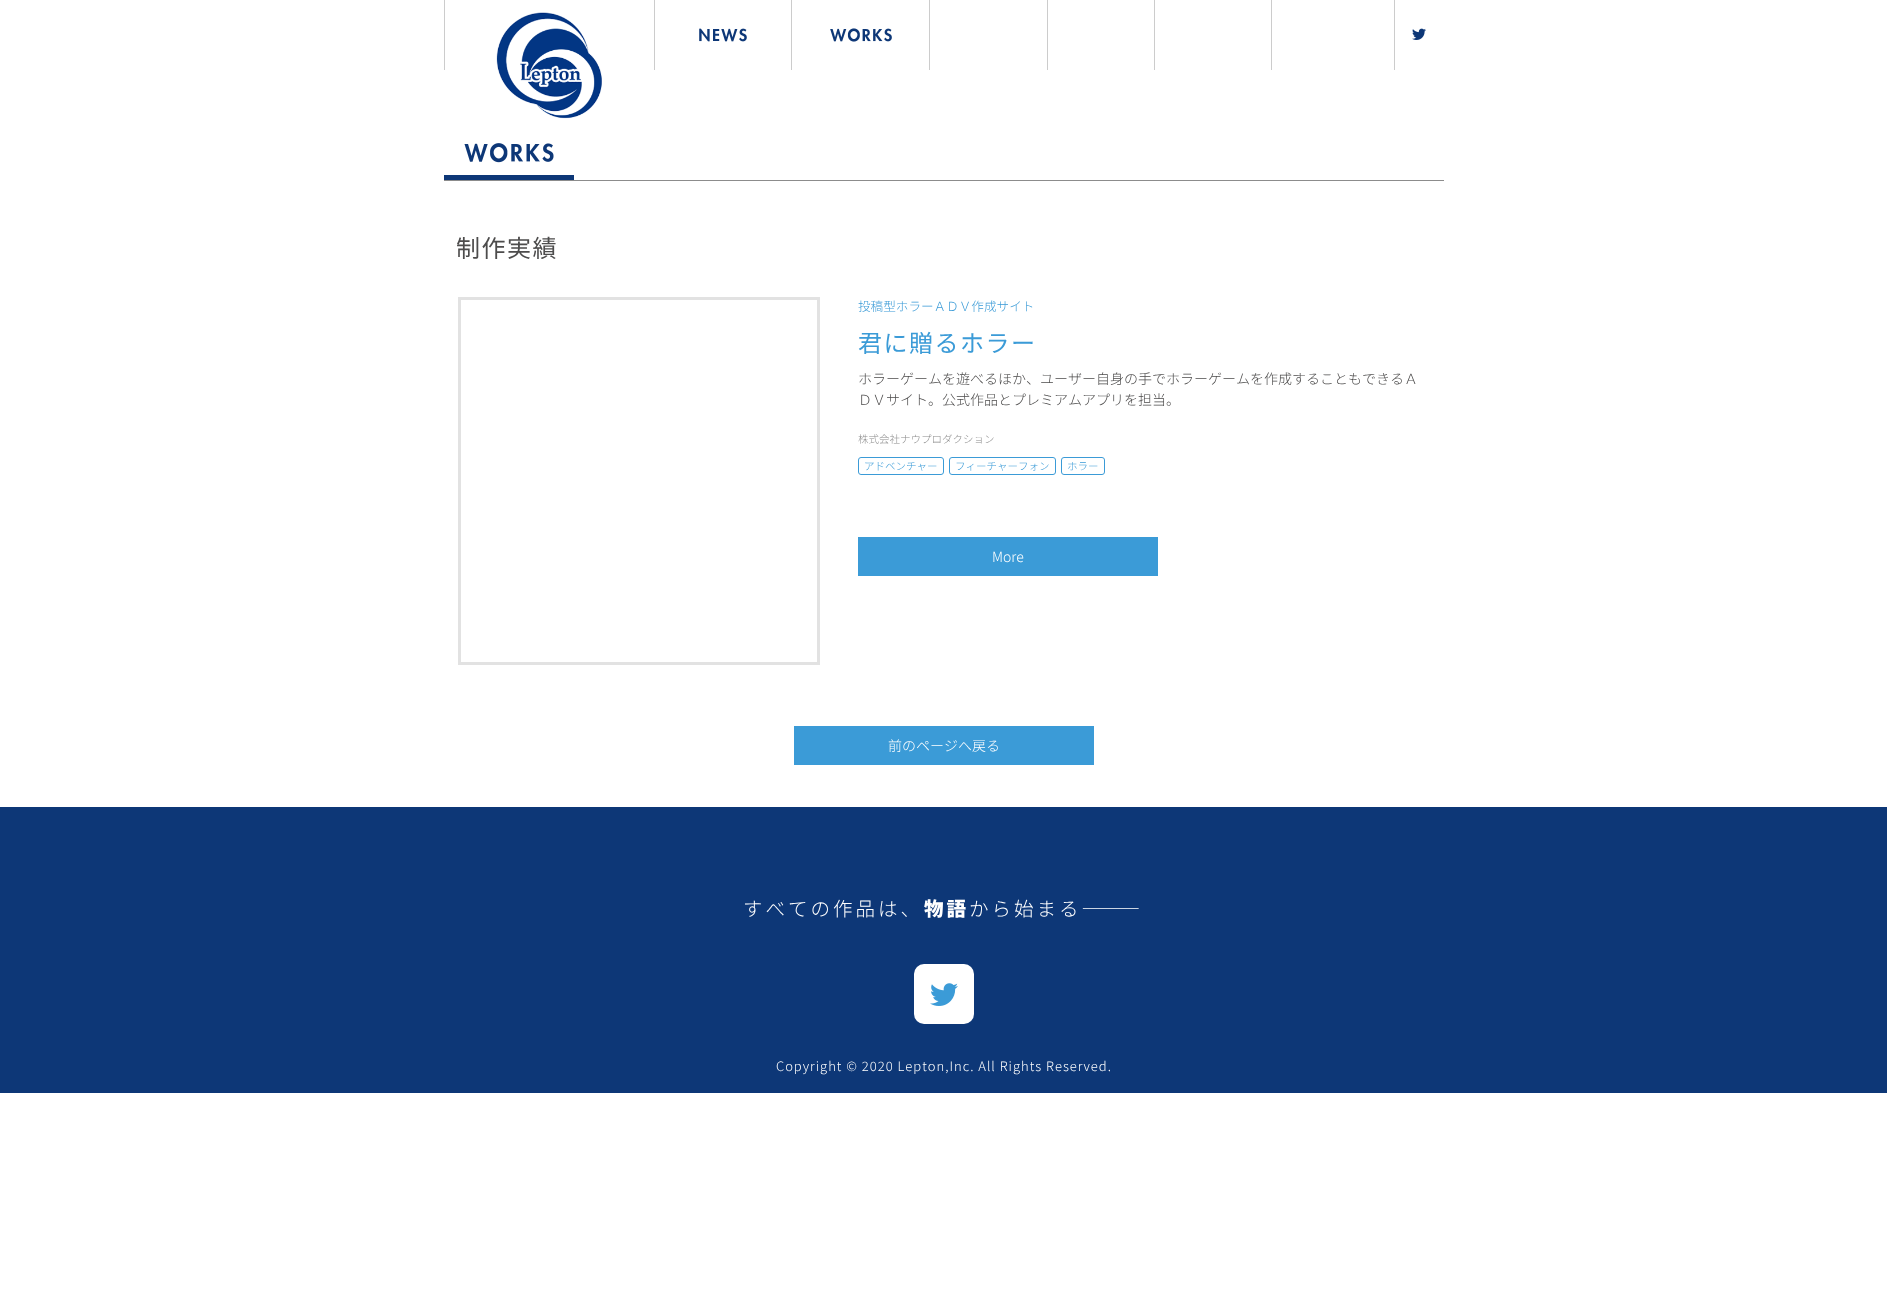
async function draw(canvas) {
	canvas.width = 1887;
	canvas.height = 1309;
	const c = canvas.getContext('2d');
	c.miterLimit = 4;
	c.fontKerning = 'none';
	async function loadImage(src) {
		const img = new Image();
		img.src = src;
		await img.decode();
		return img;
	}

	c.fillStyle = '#fff';
	c.fillRect(0, 0, 1887, 1309);
	c.fillStyle = '#ccc';
	c.fillRect(444, 0, 1, 70);
	c.fillRect(654, 0, 1, 70);
	c.drawImage(await loadImage('img1.png'), 699, 28, 48, 14);
	c.fillRect(791, 0, 1, 70);
	c.drawImage(await loadImage('img2.png'), 830, 28, 62, 14);
	for (const [x, y, w, h, color] of [
		[929, 0, 1, 70, '#ccc'],
		[1047, 0, 1, 70, '#ccc'],
		[1154, 0, 1, 70, '#ccc'],
		[1271, 0, 1, 70, '#ccc'],
		[1394, 0, 1, 70, '#ccc'],
	]) {
		c.fillStyle = color;
		c.fillRect(x, y, w, h);
	}
	c.drawImage(await loadImage('img3.png'), 1412, 28, 14, 12);
	c.drawImage(await loadImage('img4.png'), 496, 12, 106, 107);
	c.fillStyle = '#8c8c8c';
	c.fillRect(444, 180, 1000, 1);
	c.drawImage(await loadImage('img5.png'), 464, 143, 90, 20);
	c.fillStyle = '#0d3777';
	c.fillRect(444, 175, 130, 5);
	c.letterSpacing = '1.5px';
	c.font = '24px Noto Sans JP';
	c.fillStyle = '#4d4c4c';
	c.fillText('制作実績', 456, 257);
	c.strokeStyle = '#e2e2e2';
	c.lineWidth = 3;
	c.strokeRect(459.5, 298.5, 359, 365);
	c.letterSpacing = '0px';
	c.font = '300 12.6px Noto Sans JP';
	c.fillStyle = '#3b9bd7';
	c.fillText('投稿型ホラーＡＤＶ作成サイト', 858, 311);
	c.letterSpacing = '1.5px';
	c.font = '24px Noto Sans JP';
	c.fillText('君に贈るホラー', 858, 352);
	c.letterSpacing = '0px';
	c.font = '300 14px Noto Sans JP';
	c.fillStyle = '#4d4c4c';
	c.fillText('ホラーゲームを遊べるほか、ユーザー自身の手でホラーゲームを作成することもできるＡ', 858, 384);
	c.fillText('ＤＶサイト。公式作品とプレミアムアプリを担当。', 858, 405);
	c.font = '300 10.5px Noto Sans JP';
	c.fillStyle = '#8c8c8c';
	c.fillText('株式会社ナウプロダクション', 858, 443);
	c.beginPath();
	c.roundRect(858.5, 457.5, 85, 17, 2.5);
	c.strokeStyle = '#3b9bd7';
	c.lineWidth = 1;
	c.stroke();
	c.fillStyle = '#3b9bd7';
	c.fillText('アドベンチャー', 864, 470);
	c.beginPath();
	c.roundRect(949.5, 457.5, 106, 17, 2.5);
	c.stroke();
	c.fillText('フィーチャーフォン', 955, 470);
	c.beginPath();
	c.roundRect(1061.5, 457.5, 43, 17, 2.5);
	c.stroke();
	c.fillText('ホラー', 1067, 470);
	c.fillRect(858, 537, 300, 39);
	c.font = '300 14px Noto Sans JP';
	c.fillStyle = '#fff';
	c.fillText('More', 992, 562);
	c.fillStyle = '#3b9bd7';
	c.fillRect(794, 726, 300, 39);
	c.fillStyle = '#fff';
	c.fillText('前のページへ戻る', 888, 751);
	c.fillStyle = '#0d3777';
	c.fillRect(0, 807, 1887, 286);
	c.letterSpacing = '3px';
	c.font = '300 19.5px Noto Sans JP';
	c.fillStyle = '#fff';
	c.fillText('すべての作品は、', 743, 916);
	c.font = '900 19.5px Noto Sans JP';
	c.fillText('物語', 924, 916);
	c.font = '300 19.5px Noto Sans JP';
	c.fillText('から始まる―――', 969, 916);
	c.beginPath();
	c.roundRect(914, 964, 60, 60, 10);
	c.fill();
	c.drawImage(await loadImage('img6.png'), 930, 983, 28, 23);
	c.letterSpacing = '1px';
	c.font = '300 13px Noto Sans JP';
	c.fillText('Copyright © 2020 Lepton,Inc. All Rights Reserved.', 776, 1071);
}

draw(document.querySelector('canvas'));
